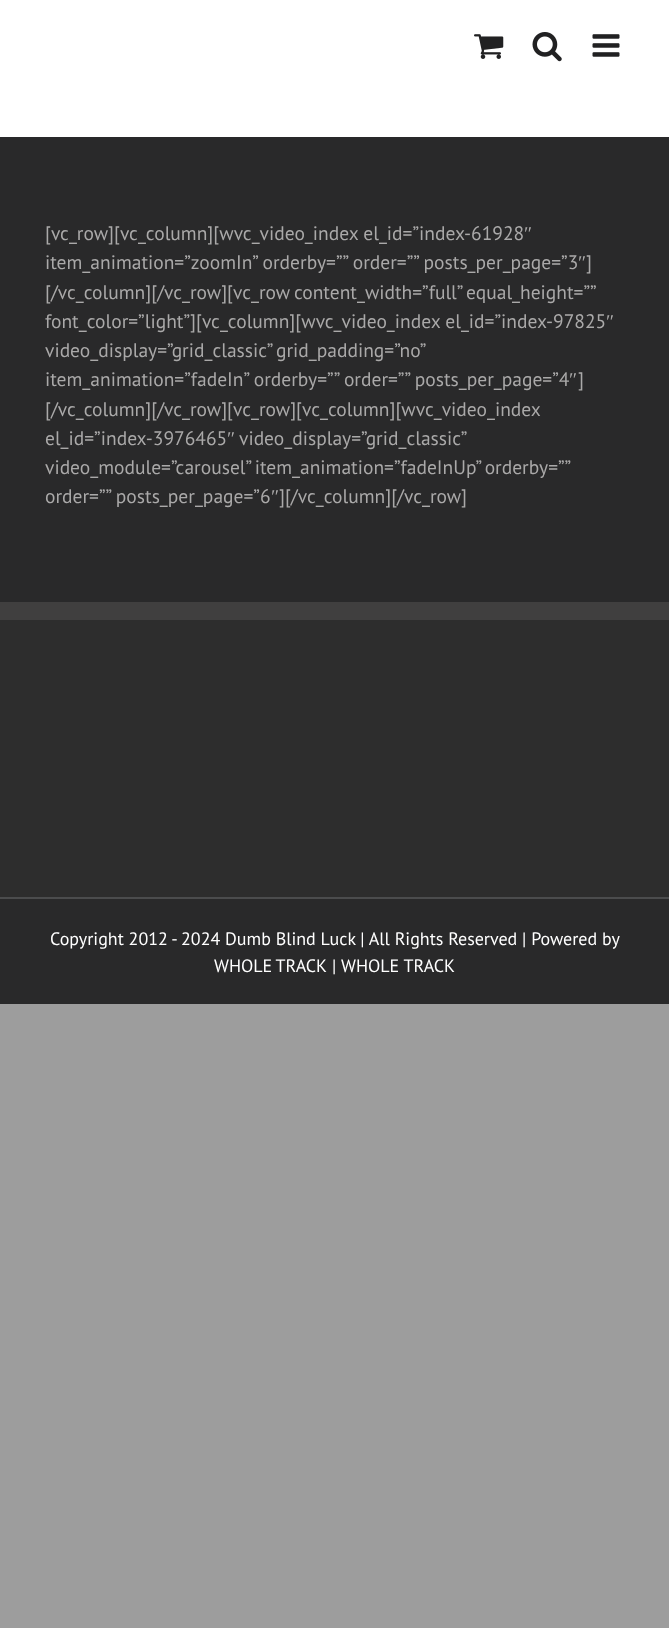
async function draw(canvas) {
	canvas.width = 669;
	canvas.height = 1628;
	const c = canvas.getContext('2d');
	c.miterLimit = 4;
	c.fontKerning = 'normal';
	async function loadImage(src) {
		const img = new Image();
		img.src = src;
		await img.decode();
		return img;
	}

	c.fillStyle = '#9d9d9d';
	c.fillRect(0, 0, 669, 1628);
	c.fillStyle = '#29292a';
	c.fillRect(0, 137, 669, 867);
	c.fillStyle = '#fff';
	c.fillRect(0, 0, 669, 137);
	c.drawImage(await loadImage('img1.png'), 474, 34, 30, 25);
	c.drawImage(await loadImage('img2.png'), 532, 32, 30, 30);
	c.drawImage(await loadImage('img3.png'), 592, 34, 28, 23);
	c.font = '19.5px PT Sans';
	c.fillStyle = '#aaa9a9';
	c.fillText('[vc_row][vc_column][wvc_video_index el_id=”index-61928', 45, 240);
	c.font = '19.5px Liberation Serif';
	c.fillText('″', 524, 240);
	c.font = '19.5px PT Sans';
	c.fillText('item_animation=”zoomIn” orderby=”” order=”” posts_per_page=”3', 45, 269);
	c.font = '19.5px Liberation Serif';
	c.fillText('″', 578, 269);
	c.font = '19.5px PT Sans';
	c.fillText(']', 586, 269);
	c.wordSpacing = '-1px';
	c.fillText('[/vc_column][/vc_row][vc_row content_width=”full” equal_height=””', 45, 299);
	c.wordSpacing = '0px';
	c.fillText('font_color=”light”][vc_column][wvc_video_index el_id=”index-97825', 45, 328);
	c.font = '19.5px Liberation Serif';
	c.fillText('″', 606, 328);
	c.wordSpacing = '-1px';
	c.font = '19.5px PT Sans';
	c.fillText('video_display=”grid_classic” grid_padding=”no”', 45, 357);
	c.wordSpacing = '0px';
	c.fillText('item_animation=”fadeIn” orderby=”” order=”” posts_per_page=”4', 45, 386);
	c.font = '19.5px Liberation Serif';
	c.fillText('″', 569, 386);
	c.font = '19.5px PT Sans';
	for (const [text, x, y] of [
		[']', 578, 386],
		['[/vc_column][/vc_row][vc_row][vc_column][wvc_video_index', 45, 416],
		['el_id=”index-3976465', 45, 445],
	]) {
		c.fillText(text, x, y);
	}
	c.font = '19.5px Liberation Serif';
	c.fillText('″', 227, 445);
	c.font = '19.5px PT Sans';
	c.fillText('video_display=”grid_classic”', 239, 445);
	c.wordSpacing = '-1px';
	c.fillText('video_module=”carousel” item_animation=”fadeInUp” orderby=””', 45, 474);
	c.wordSpacing = '0px';
	c.fillText('order=”” posts_per_page=”6', 45, 503);
	c.font = '19.5px Liberation Serif';
	c.fillText('″', 271, 503);
	c.font = '19.5px PT Sans';
	c.fillText('][/vc_column][/vc_row]', 279, 503);
	for (const [x, y, w, h, color] of [
		[0, 620, 669, 277, '#2d2d2d'],
		[0, 602, 669, 18, '#403f3f'],
		[0, 897, 669, 2, '#4b4c4d'],
	]) {
		c.fillStyle = color;
		c.fillRect(x, y, w, h);
	}
	c.font = '18px PT Sans';
	c.fillStyle = '#fff';
	c.fillText('Copyright 2012 - 2024 Dumb Blind Luck | All Rights Reserved | Powered by', 50, 945);
	c.wordSpacing = '-1px';
	c.fillText('WHOLE TRACK', 214, 972);
	c.wordSpacing = '0px';
	c.fillText('|', 332, 972);
	c.fillText('WHOLE TRACK', 341, 972);
}

draw(document.querySelector('canvas'));
